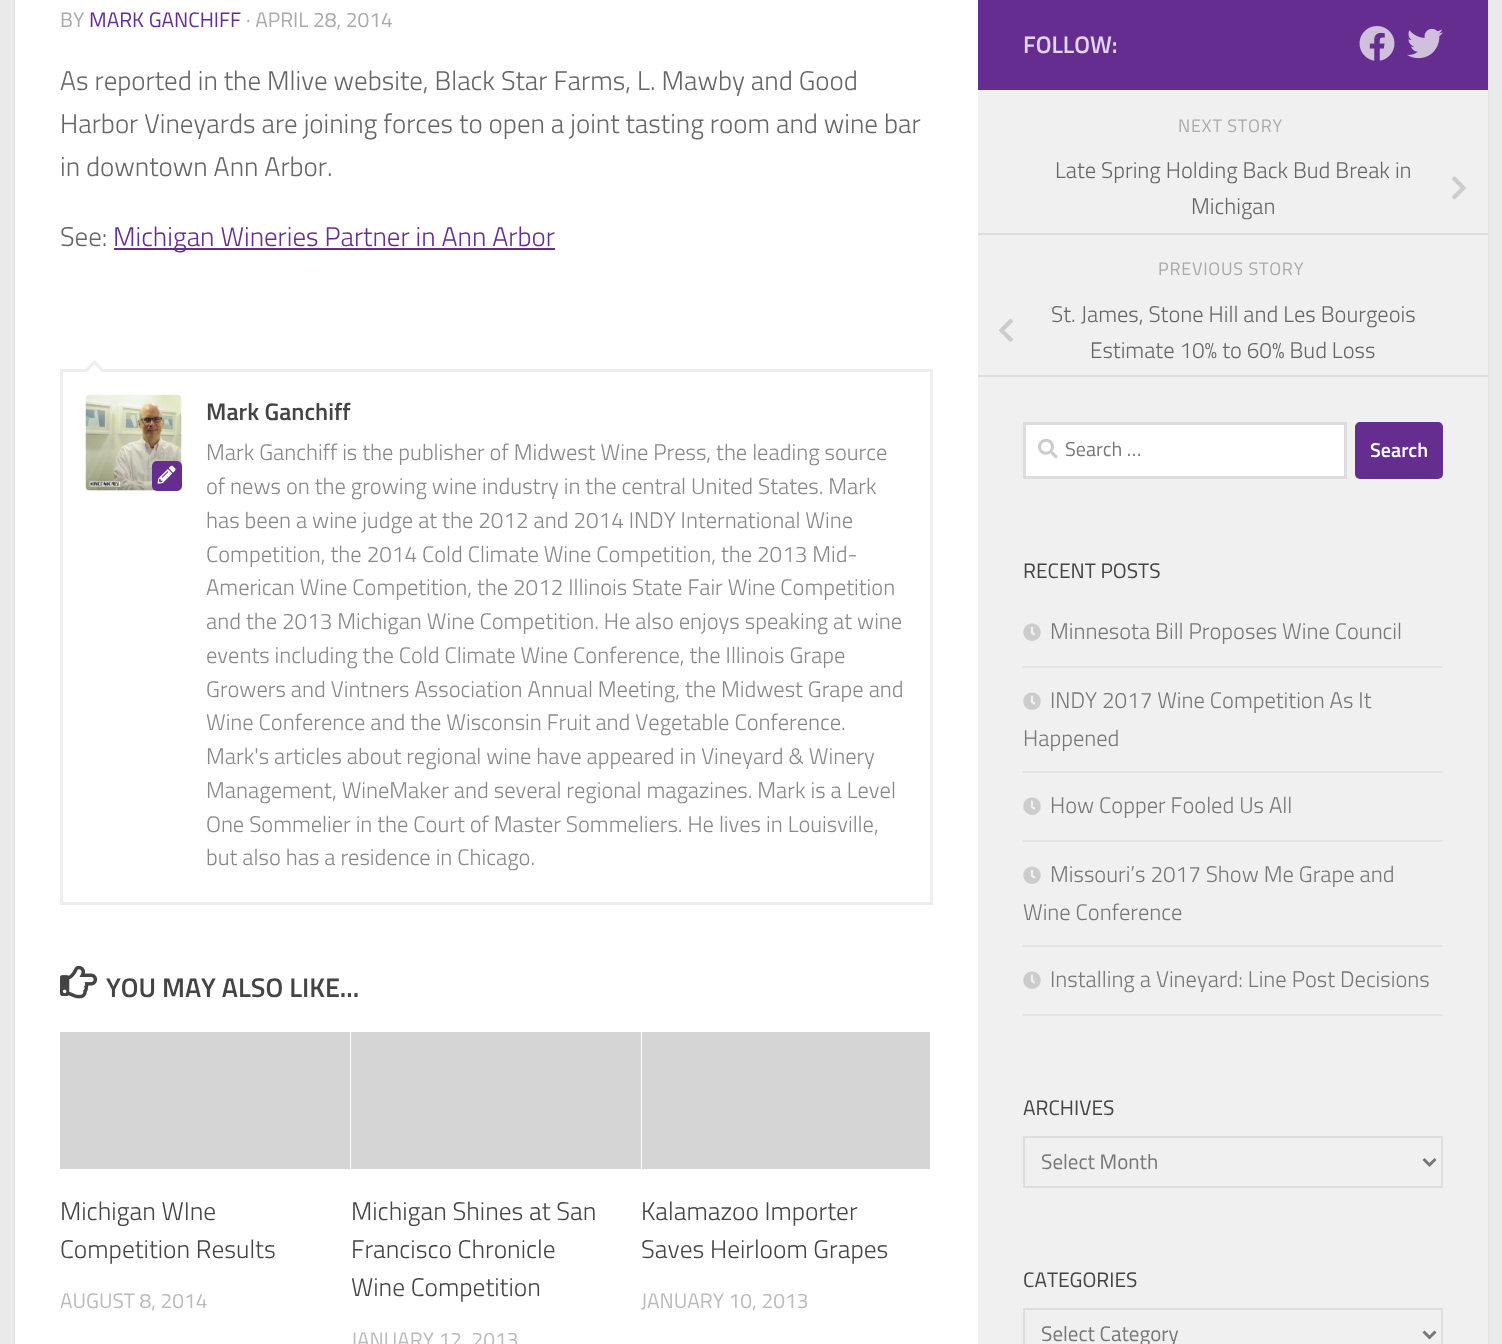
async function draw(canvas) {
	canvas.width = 1502;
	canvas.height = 1344;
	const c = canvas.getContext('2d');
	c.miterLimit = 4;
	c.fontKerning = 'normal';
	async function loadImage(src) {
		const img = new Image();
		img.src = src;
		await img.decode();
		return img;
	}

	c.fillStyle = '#eaeaea';
	c.fillRect(0, 0, 1502, 1344);
	c.fillStyle = '#0000001a';
	c.filter = 'blur(1px)';
	c.beginPath();
	c.rect(15, -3, 1473, 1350);
	c.fill();
	c.filter = 'none';
	c.fillStyle = '#fff';
	c.fillRect(15, 0, 963, 1344);
	c.font = '21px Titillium';
	c.fillStyle = '#aaa';
	c.fillText('BY', 60, 27);
	c.fillStyle = '#652d90';
	c.fillText('MARK GANCHIFF', 89, 27);
	c.fillStyle = '#aaa';
	c.fillText('· APRIL 28, 2014', 246, 27);
	c.font = '300 27px Titillium';
	c.fillStyle = '#666';
	for (const [text, x, y] of [
		['As reported in the Mlive website, Black Star Farms, L. Mawby and Good', 60, 90],
		['Harbor Vineyards are joining forces to open a joint tasting room and wine bar', 60, 133],
		['in downtown Ann Arbor.', 60, 176],
		['See:', 60, 246],
	]) {
		c.fillText(text, x, y);
	}
	c.fillStyle = '#652d90';
	c.fillRect(114, 248, 441, 2);
	c.fillText('Michigan Wineries Partner in Ann Arbor', 113, 246);
	c.strokeStyle = '#eee';
	c.lineWidth = 3;
	c.strokeRect(61.5, 370.5, 870, 533);
	c.fillStyle = '#eee';
	c.beginPath();
	c.moveTo(106.5, 372);
	c.lineTo(82.5, 372);
	c.lineTo(94.5, 360);
	c.closePath();
	c.fill();
	c.fillStyle = '#fff';
	c.beginPath();
	c.moveTo(103.5, 373.5);
	c.lineTo(85.5, 373.5);
	c.lineTo(94.5, 364.5);
	c.closePath();
	c.fill();
	c.drawImage(await loadImage('img1.png'), 85, 394, 97, 97);
	c.fillStyle = '#652d90';
	c.beginPath();
	c.roundRect(152, 461, 30, 30, 5);
	c.fill();
	c.drawImage(await loadImage('img2.png'), 157, 465, 19, 19);
	c.font = '600 24px Titillium';
	c.fillStyle = '#444';
	c.fillText('Mark Ganchiff', 206, 420);
	c.font = '300 22.5px Titillium';
	c.fillStyle = '#888';
	for (const [text, x, y] of [
		['Mark Ganchiff is the publisher of Midwest Wine Press, the leading source', 206, 460],
		['of news on the growing wine industry in the central United States. Mark', 206, 494],
		['has been a wine judge at the 2012 and 2014 INDY International Wine', 206, 528],
		['Competition, the 2014 Cold Climate Wine Competition, the 2013 Mid-', 206, 562],
		['American Wine Competition, the 2012 Illinois State Fair Wine Competition', 206, 595],
		['and the 2013 Michigan Wine Competition. He also enjoys speaking at wine', 206, 629],
		['events including the Cold Climate Wine Conference, the Illinois Grape', 206, 663],
		['Growers and Vintners Association Annual Meeting, the Midwest Grape and', 206, 697],
		['Wine Conference and the Wisconsin Fruit and Vegetable Conference.', 206, 730],
		['Mark\'s articles about regional wine have appeared in Vineyard & Winery', 206, 764],
		['Management, WineMaker and several regional magazines. Mark is a Level', 206, 798],
		['One Sommelier in the Court of Master Sommeliers. He lives in Louisville,', 206, 832],
		['but also has a residence in Chicago.', 206, 865],
	]) {
		c.fillText(text, x, y);
	}
	c.drawImage(await loadImage('img3.png'), 60, 965, 38, 34);
	c.font = '600 27px Titillium';
	c.fillStyle = '#444';
	c.fillText('YOU MAY ALSO LIKE...', 106, 997);
	c.fillStyle = '#d5d5d5';
	c.fillRect(60, 1032, 290, 137);
	c.font = '300 25.5px Titillium';
	c.fillStyle = '#444';
	c.fillText('Michigan WIne', 60, 1220);
	c.fillText('Competition Results', 60, 1258);
	c.font = '21px Titillium';
	c.fillStyle = '#bbb';
	c.fillText('AUGUST 8, 2014', 60, 1308);
	c.fillStyle = '#d5d5d5';
	c.fillRect(351, 1032, 290, 137);
	c.font = '300 25.5px Titillium';
	c.fillStyle = '#444';
	for (const [text, x, y] of [
		['Michigan Shines at San', 351, 1220],
		['Francisco Chronicle', 351, 1258],
		['Wine Competition', 351, 1296],
	]) {
		c.fillText(text, x, y);
	}
	c.font = '21px Titillium';
	c.fillStyle = '#bbb';
	c.fillText('JANUARY 12, 2013', 351, 1347);
	c.fillStyle = '#d5d5d5';
	c.fillRect(642, 1032, 288, 137);
	c.font = '300 25.5px Titillium';
	c.fillStyle = '#444';
	c.fillText('Kalamazoo Importer', 641, 1220);
	c.fillText('Saves Heirloom Grapes', 641, 1258);
	c.font = '21px Titillium';
	c.fillStyle = '#bbb';
	c.fillText('JANUARY 10, 2013', 641, 1308);
	c.fillStyle = '#652d90';
	c.fillRect(978, 0, 510, 90);
	c.font = '600 24px Titillium';
	c.fillStyle = '#e0d5e9';
	c.fillText('FOLLOW:', 1023, 53);
	c.drawImage(await loadImage('img4.png'), 1359, 26, 36, 35);
	c.drawImage(await loadImage('img5.png'), 1407, 28, 36, 31);
	c.fillStyle = '#f0f0f0';
	c.fillRect(978, 90, 510, 1254);
	c.letterSpacing = '0.75px';
	c.font = '18px Titillium';
	c.fillStyle = '#aaa';
	c.fillText('NEXT STORY', 1178, 132);
	c.fillStyle = '#ddd';
	c.fillRect(978, 233, 510, 2);
	c.letterSpacing = '0px';
	c.font = '300 22.5px Titillium';
	c.fillStyle = '#666';
	c.fillText('Late Spring Holding Back Bud Break in', 1055, 178);
	c.drawImage(await loadImage('img6.png'), 1452, 176, 14, 24);
	c.fillText('Michigan', 1191, 214);
	c.letterSpacing = '0.75px';
	c.font = '18px Titillium';
	c.fillStyle = '#aaa';
	c.fillText('PREVIOUS STORY', 1158, 275);
	c.fillStyle = '#ddd';
	c.fillRect(978, 375, 510, 2);
	c.letterSpacing = '0px';
	c.font = '300 22.5px Titillium';
	c.fillStyle = '#666';
	c.fillText('St. James, Stone Hill and Les Bourgeois', 1051, 322);
	c.drawImage(await loadImage('img7.png'), 999, 319, 14, 23);
	c.fillText('Estimate 10% to 60% Bud Loss', 1090, 358);
	c.fillStyle = '#fff';
	c.beginPath();
	c.rect(1024.5, 423.5, 321, 54);
	c.fill();
	c.strokeStyle = '#ddd';
	c.stroke();
	c.drawImage(await loadImage('img8.png'), 1038, 438, 20, 21);
	c.font = '20px Titillium';
	c.fillStyle = '#777';
	c.fillText('Search …', 1065, 456);
	c.fillStyle = '#652d90';
	c.beginPath();
	c.roundRect(1355, 422, 88, 57, 5);
	c.fill();
	c.font = '600 20px Titillium';
	c.fillStyle = '#fff';
	c.fillText('Search', 1370, 457);
	c.font = '21px Titillium';
	c.fillStyle = '#444';
	c.fillText('RECENT POSTS', 1023, 578);
	c.fillStyle = '#e4e4e4';
	c.fillRect(1023, 666, 420, 2);
	c.drawImage(await loadImage('img9.png'), 1023, 623, 18, 18);
	c.font = '300 22.5px Titillium';
	c.fillStyle = '#777';
	c.fillText('Minnesota Bill Proposes Wine Council', 1050, 639);
	c.fillStyle = '#e4e4e4';
	c.fillRect(1023, 771, 420, 2);
	c.drawImage(await loadImage('img9.png'), 1023, 692, 18, 18);
	c.fillStyle = '#777';
	c.fillText('INDY 2017 Wine Competition As It', 1050, 708);
	c.fillText('Happened', 1023, 746);
	c.fillStyle = '#e4e4e4';
	c.fillRect(1023, 840, 420, 2);
	c.drawImage(await loadImage('img9.png'), 1023, 797, 18, 18);
	c.fillStyle = '#777';
	c.fillText('How Copper Fooled Us All', 1050, 813);
	c.fillStyle = '#e4e4e4';
	c.fillRect(1023, 945, 420, 2);
	c.drawImage(await loadImage('img9.png'), 1023, 866, 18, 18);
	c.fillStyle = '#777';
	c.fillText('Missouri’s 2017 Show Me Grape and', 1050, 882);
	c.fillText('Wine Conference', 1023, 920);
	c.fillStyle = '#e4e4e4';
	c.fillRect(1023, 1014, 420, 2);
	c.drawImage(await loadImage('img9.png'), 1023, 971, 18, 18);
	c.fillStyle = '#777';
	c.fillText('Installing a Vineyard: Line Post Decisions', 1050, 987);
	c.font = '21px Titillium';
	c.fillStyle = '#444';
	c.fillText('ARCHIVES', 1023, 1115);
	c.lineWidth = 2;
	c.strokeRect(1024, 1137, 418, 50);
	c.beginPath();
	c.moveTo(1423.5, 1159);
	c.lineTo(1429.5, 1165);
	c.lineTo(1435.5, 1159);
	c.strokeStyle = '#777';
	c.lineWidth = 3;
	c.stroke();
	c.fillStyle = '#777';
	c.fillText('Select Month', 1041, 1169);
	c.fillStyle = '#444';
	c.fillText('CATEGORIES', 1023, 1287);
	c.strokeStyle = '#ddd';
	c.lineWidth = 2;
	c.strokeRect(1024, 1309, 418, 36);
	c.beginPath();
	c.moveTo(1423.5, 1331.5);
	c.lineTo(1429.5, 1337.5);
	c.lineTo(1435.5, 1331.5);
	c.strokeStyle = '#777';
	c.lineWidth = 3;
	c.stroke();
	c.fillStyle = '#777';
	c.fillText('Select Category', 1041, 1341);
}

draw(document.querySelector('canvas'));
